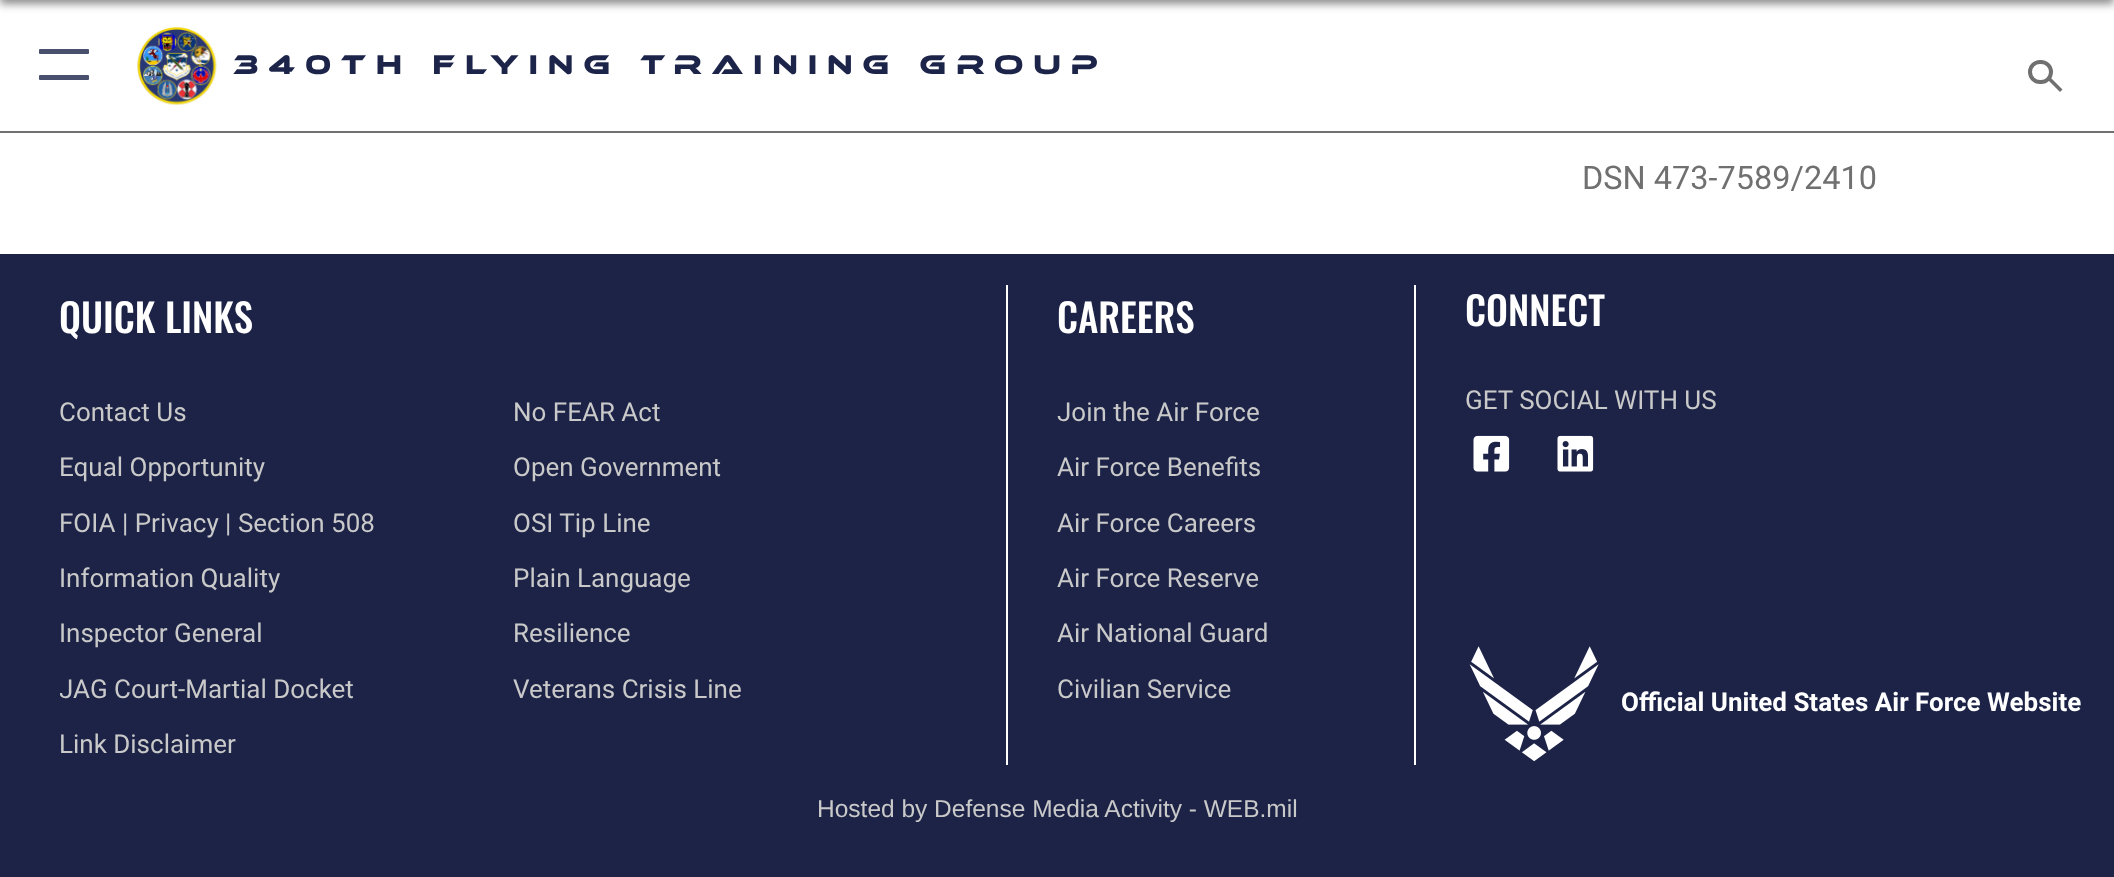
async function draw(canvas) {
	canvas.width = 2114;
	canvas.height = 877;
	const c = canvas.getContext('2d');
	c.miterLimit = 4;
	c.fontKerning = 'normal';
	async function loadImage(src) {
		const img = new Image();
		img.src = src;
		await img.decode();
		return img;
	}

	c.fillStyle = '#fff';
	c.fillRect(0, 0, 2114, 877);
	c.fillStyle = '#19191980';
	c.filter = 'blur(4.5px)';
	c.beginPath();
	c.rect(0, -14, 2114, 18);
	c.fill();
	c.filter = 'none';
	c.fillStyle = '#707070';
	c.fillRect(0, 131, 2114, 2);
	c.fillStyle = '#49506d';
	c.beginPath();
	c.roundRect(39, 49, 50, 5, 1);
	c.fill();
	c.beginPath();
	c.roundRect(39, 75, 50, 5, 1);
	c.fill();
	c.drawImage(await loadImage('img1.png'), 137, 27, 80, 78);
	c.letterSpacing = '9.75px';
	c.font = '28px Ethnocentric';
	c.fillStyle = '#1c2449';
	c.fillText('340th Flying Training Group', 233, 74);
	c.beginPath();
	c.roundRect(2030, 62, 21, 20, 10);
	c.strokeStyle = '#707070';
	c.lineWidth = 4;
	c.stroke();
	c.fillStyle = '#707070';
	c.beginPath();
	c.moveTo(2050.5, 77.5);
	c.lineTo(2062.5, 89.5);
	c.lineTo(2060, 92);
	c.lineTo(2048, 80);
	c.closePath();
	c.fill();
	c.letterSpacing = '0px';
	c.font = '32.5px Roboto';
	c.fillText('DSN 473-7589/2410', 1582, 189);
	c.fillStyle = '#1c2347';
	c.fillRect(0, 254, 2114, 623);
	c.font = '500 39px Oswald';
	c.fillStyle = '#fff';
	c.fillText('QUICK LINKS', 59, 333);
	c.font = '26px Roboto';
	c.fillStyle = '#c9c9c9';
	for (const [text, x, y] of [
		['Contact Us', 59, 421],
		['No FEAR Act', 513, 421],
		['Equal Opportunity', 59, 476],
		['Open Government', 513, 476],
		['FOIA | Privacy | Section 508', 59, 532],
		['OSI Tip Line', 513, 532],
		['Information Quality', 59, 587],
		['Plain Language', 513, 587],
		['Inspector General', 59, 642],
		['Resilience', 513, 642],
	]) {
		c.fillText(text, x, y);
	}
	c.save();
	c.beginPath();
	c.rect(60, 394, 871, 371);
	c.clip();
	c.fillText('JAG Court-Martial Docket', 59, 698);
	c.restore();
	c.fillText('Veterans Crisis Line', 513, 698);
	c.fillText('Link Disclaimer', 59, 753);
	c.fillStyle = '#fff';
	c.fillRect(1414, 285, 2, 480);
	c.fillRect(1006, 285, 2, 480);
	c.font = '500 39px Oswald';
	c.fillText('CAREERS', 1057, 333);
	c.font = '26px Roboto';
	c.fillStyle = '#c9c9c9';
	for (const [text, x, y] of [
		['Join the Air Force', 1057, 421],
		['Air Force Benefits', 1057, 476],
		['Air Force Careers', 1057, 532],
		['Air Force Reserve', 1057, 587],
		['Air National Guard', 1057, 642],
		['Civilian Service', 1057, 698],
	]) {
		c.fillText(text, x, y);
	}
	c.font = '500 39px Oswald';
	c.fillStyle = '#fff';
	c.fillText('CONNECT', 1465, 326);
	c.font = '26px Roboto';
	c.fillStyle = '#c9c9c9';
	c.fillText('GET SOCIAL WITH US', 1465, 409);
	c.drawImage(await loadImage('img2.png'), 1473, 435, 37, 37);
	c.drawImage(await loadImage('img3.png'), 1557, 435, 37, 37);
	c.drawImage(await loadImage('img4.png'), 1469, 646, 130, 116);
	c.font = 'bold 26px Roboto';
	c.fillStyle = '#fff';
	c.fillText('Official United States Air Force Website', 1621, 711);
	c.font = '24.5px Liberation Sans';
	c.fillStyle = '#c9c9c9';
	c.fillText('Hosted by Defense Media Activity - WEB.mil', 817, 817);
}

draw(document.querySelector('canvas'));
